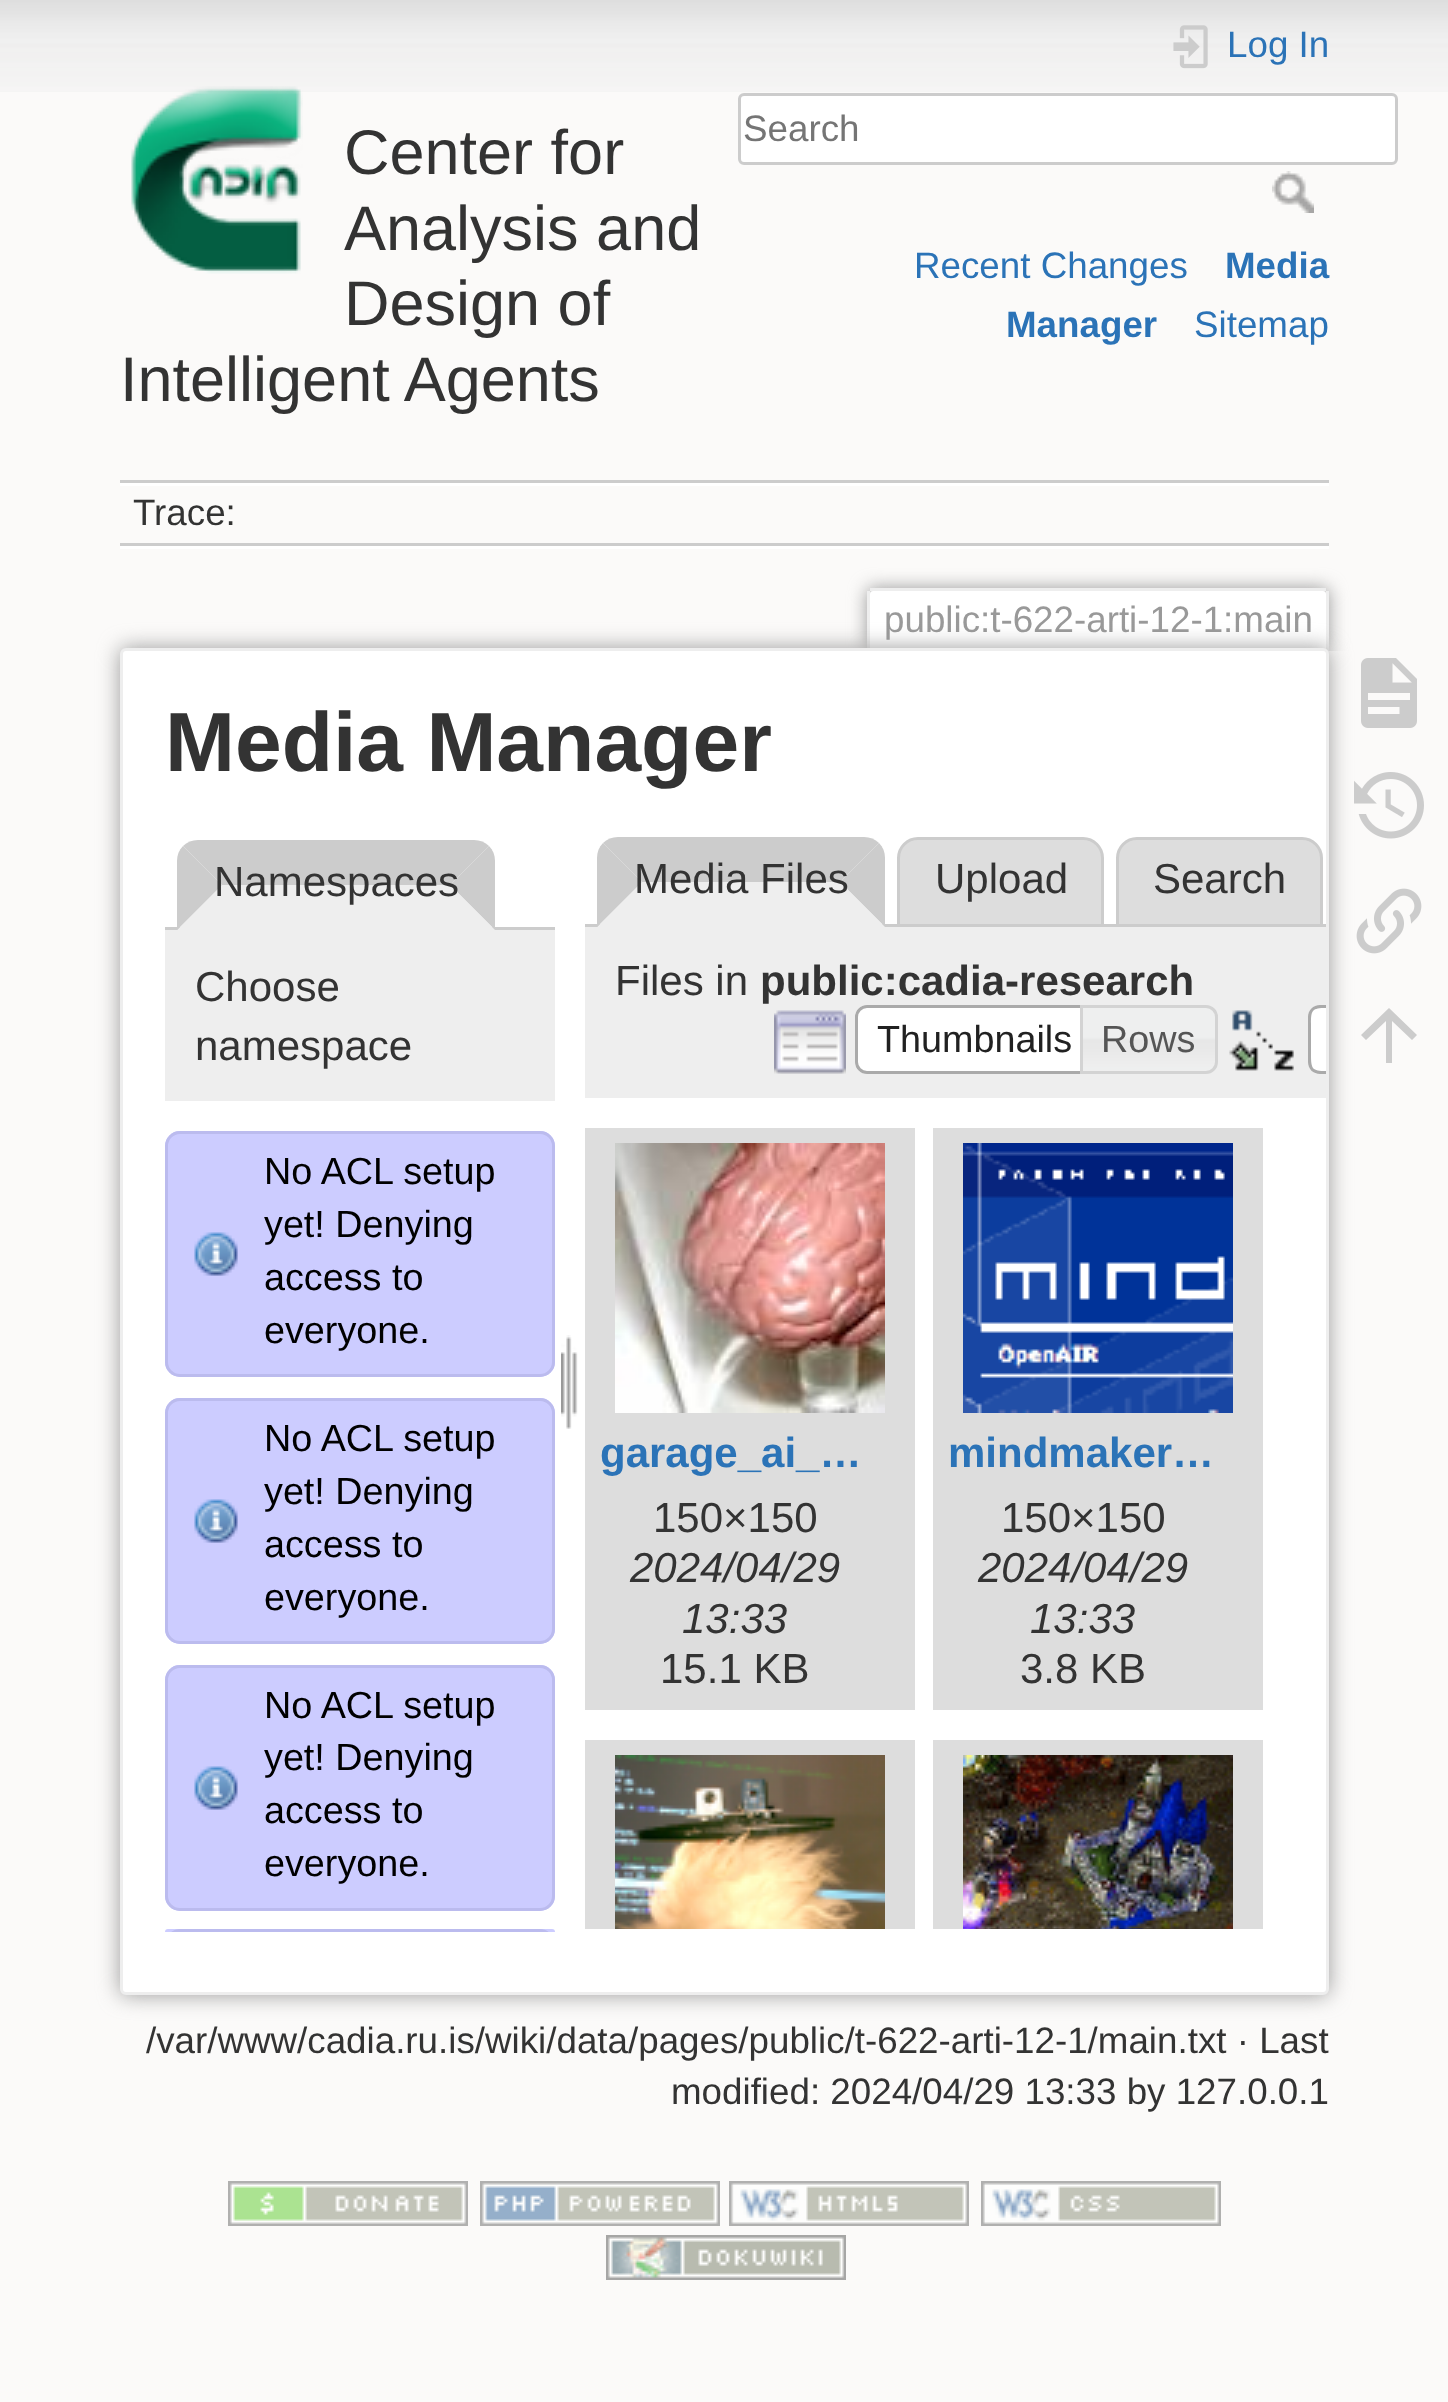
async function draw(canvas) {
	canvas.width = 1448;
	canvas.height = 2402;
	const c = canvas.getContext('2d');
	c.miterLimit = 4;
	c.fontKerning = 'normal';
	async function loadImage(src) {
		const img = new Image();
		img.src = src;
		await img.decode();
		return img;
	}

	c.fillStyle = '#fbfaf9';
	c.fillRect(0, 0, 1448, 2402);
	c.drawImage(await loadImage('img1.png'), 0, 0, 1448, 92);
	c.drawImage(await loadImage('img2.png'), 131, 86, 172, 188);
	c.font = '63px Liberation Sans';
	c.fillStyle = '#333';
	for (const [text, x, y] of [
		['Center for', 344, 174],
		['Analysis and', 344, 250],
		['Design of', 344, 325],
		['Intelligent Agents', 120, 401],
	]) {
		c.fillText(text, x, y);
	}
	c.drawImage(await loadImage('img3.png'), 1173, 25, 35, 44);
	c.font = '36.75px Liberation Sans';
	c.fillStyle = '#2b73b7';
	c.fillText('Log In', 1227, 57);
	c.fillStyle = '#fff';
	c.beginPath();
	c.roundRect(739.5, 94.5, 657, 69, 4.5);
	c.fill();
	c.strokeStyle = '#ccc';
	c.lineWidth = 3;
	c.stroke();
	c.fillStyle = '#757575';
	c.fillText('Search', 743, 141);
	c.drawImage(await loadImage('img4.png'), 1272, 171, 42, 42);
	c.fillStyle = '#2b73b7';
	c.fillText('Recent Changes', 914, 278);
	c.font = 'bold 36.75px Liberation Sans';
	c.fillText('Media', 1225, 278);
	c.fillText('Manager', 1006, 337);
	c.font = '36.75px Liberation Sans';
	c.fillText('Sitemap', 1194, 337);
	for (const [x, y, w, h, color] of [
		[120, 480, 1209, 3, '#ccc'],
		[120, 546, 1209, 3, '#fff'],
		[120, 483, 1209, 3, '#fff'],
		[120, 543, 1209, 3, '#ccc'],
	]) {
		c.fillStyle = color;
		c.fillRect(x, y, w, h);
	}
	c.fillStyle = '#333';
	c.fillText('Trace:', 133, 525);
	c.save();
	c.beginPath();
	c.rect(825, 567, 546, 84);
	c.clip();
	c.fillStyle = '#999';
	c.filter = 'blur(9px)';
	c.beginPath();
	c.roundRect(867, 588, 462, 63, 6);
	c.fill();
	c.filter = 'none';
	c.restore();
	c.fillStyle = '#fff';
	c.beginPath();
	c.roundRect(870, 591, 456, 60, [3, 3, 0, 0]);
	c.fill();
	for (const [x, y, w, h, color] of [
		[870, 588, 456, 3, '#eee'],
		[1326, 591, 3, 60, '#eee'],
		[867, 591, 3, 60, '#eee'],
	]) {
		c.fillStyle = color;
		c.fillRect(x, y, w, h);
	}
	c.fillStyle = '#999';
	c.fillText('public:t-622-arti-12-1:main', 884, 632);
	c.filter = 'blur(10.5px)';
	c.beginPath();
	c.roundRect(120, 648, 1209, 1347, 6);
	c.fill();
	c.filter = 'none';
	c.fillStyle = '#fff';
	c.beginPath();
	c.roundRect(121.5, 649.5, 1206, 1344, 4.5);
	c.fill();
	c.strokeStyle = '#eee';
	c.stroke();
	c.font = 'bold 84px Liberation Sans';
	c.fillStyle = '#333';
	c.fillText('Media Manager', 165, 771);
	c.fillStyle = '#ccc';
	c.beginPath();
	c.moveTo(198, 840);
	c.lineTo(474, 840);
	c.bezierCurveTo(480, 840, 485, 842, 489, 846);
	c.lineTo(450, 885);
	c.lineTo(222, 885);
	c.lineTo(183, 846);
	c.bezierCurveTo(187, 842, 192, 840, 198, 840);
	c.closePath();
	c.fill();
	c.fillRect(165, 927, 390, 3);
	c.beginPath();
	c.moveTo(489, 846);
	c.lineTo(450, 885);
	c.lineTo(495, 930);
	c.lineTo(495, 861);
	c.bezierCurveTo(495, 855, 493, 850, 489, 846);
	c.closePath();
	c.fill();
	c.fillStyle = '#eee';
	c.beginPath();
	c.moveTo(495, 930);
	c.lineTo(450, 885);
	c.lineTo(222, 885);
	c.lineTo(177, 930);
	c.closePath();
	c.fill();
	c.fillStyle = '#ccc';
	c.beginPath();
	c.moveTo(177, 930);
	c.lineTo(177, 861);
	c.bezierCurveTo(177, 855, 179, 850, 183, 846);
	c.lineTo(222, 885);
	c.closePath();
	c.fill();
	c.font = '42px Liberation Sans';
	c.fillStyle = '#333';
	c.fillText('Namespaces', 214, 896);
	c.fillStyle = '#eee';
	c.fillRect(165, 930, 390, 171);
	c.fillStyle = '#333';
	c.fillText('Choose', 195, 1001);
	c.fillText('namespace', 195, 1060);
	c.fillStyle = '#ccf';
	c.beginPath();
	c.roundRect(165, 1131, 390, 246, 15);
	c.fill();
	c.drawImage(await loadImage('img5.png'), 194, 1232, 44, 44);
	c.beginPath();
	c.roundRect(166.5, 1132.5, 387, 243, 13.5);
	c.strokeStyle = '#bbe';
	c.stroke();
	c.font = '37.75px Liberation Sans';
	c.fillStyle = '#000';
	for (const [text, x, y] of [
		['No ACL setup', 264, 1184],
		['yet! Denying', 264, 1237],
		['access to', 264, 1290],
		['everyone.', 264, 1343],
	]) {
		c.fillText(text, x, y);
	}
	c.fillStyle = '#ccf';
	c.beginPath();
	c.roundRect(165, 1398, 390, 246, 15);
	c.fill();
	c.drawImage(await loadImage('img5.png'), 194, 1499, 44, 44);
	c.beginPath();
	c.roundRect(166.5, 1399.5, 387, 243, 13.5);
	c.stroke();
	c.fillStyle = '#000';
	for (const [text, x, y] of [
		['No ACL setup', 264, 1451],
		['yet! Denying', 264, 1504],
		['access to', 264, 1557],
		['everyone.', 264, 1610],
	]) {
		c.fillText(text, x, y);
	}
	c.fillStyle = '#ccf';
	c.beginPath();
	c.roundRect(165, 1665, 390, 246, 15);
	c.fill();
	c.drawImage(await loadImage('img5.png'), 194, 1766, 44, 44);
	c.beginPath();
	c.roundRect(166.5, 1666.5, 387, 243, 13.5);
	c.stroke();
	c.fillStyle = '#000';
	for (const [text, x, y] of [
		['No ACL setup', 264, 1718],
		['yet! Denying', 264, 1770],
		['access to', 264, 1823],
		['everyone.', 264, 1876],
	]) {
		c.fillText(text, x, y);
	}
	c.fillStyle = '#ccf';
	c.beginPath();
	c.roundRect(165, 1929, 390, 3, [15, 15, 0, 0]);
	c.fill();
	c.save();
	c.beginPath();
	c.rect(165, 1131, 390, 801);
	c.clip();
	c.fillStyle = '#bbe';
	c.beginPath();
	c.moveTo(180, 1929);
	c.bezierCurveTo(172, 1929, 165, 1936, 165, 1944);
	c.lineTo(165, 1992);
	c.lineTo(168, 1992);
	c.lineTo(168, 1944);
	c.bezierCurveTo(168, 1937, 173, 1932, 180, 1932);
	c.lineTo(540, 1932);
	c.bezierCurveTo(547, 1932, 552, 1937, 552, 1944);
	c.lineTo(552, 1992);
	c.lineTo(555, 1992);
	c.lineTo(555, 1944);
	c.bezierCurveTo(555, 1936, 548, 1929, 540, 1929);
	c.closePath();
	c.fill();
	c.restore();
	c.drawImage(await loadImage('img6.png'), 561, 1335, 17, 94);
	c.fillStyle = '#ccc';
	c.beginPath();
	c.moveTo(618, 837);
	c.lineTo(864, 837);
	c.bezierCurveTo(870, 837, 875, 839, 879, 843);
	c.lineTo(840, 882);
	c.lineTo(642, 882);
	c.lineTo(603, 843);
	c.bezierCurveTo(607, 839, 612, 837, 618, 837);
	c.closePath();
	c.fill();
	c.fillStyle = '#ddd';
	c.beginPath();
	c.roundRect(898.5, 838.5, 204, 87, [19.5, 19.5, 0, 0]);
	c.fill();
	c.strokeStyle = '#ccc';
	c.stroke();
	c.beginPath();
	c.roundRect(1117.5, 838.5, 204, 87, [19.5, 19.5, 0, 0]);
	c.fill();
	c.stroke();
	c.fillStyle = '#ccc';
	c.fillRect(585, 924, 741, 3);
	c.beginPath();
	c.moveTo(879, 843);
	c.lineTo(840, 882);
	c.lineTo(885, 927);
	c.lineTo(885, 858);
	c.bezierCurveTo(885, 852, 883, 847, 879, 843);
	c.closePath();
	c.fill();
	c.fillStyle = '#eee';
	c.beginPath();
	c.moveTo(885, 927);
	c.lineTo(840, 882);
	c.lineTo(642, 882);
	c.lineTo(597, 927);
	c.closePath();
	c.fill();
	c.fillStyle = '#ccc';
	c.beginPath();
	c.moveTo(597, 927);
	c.lineTo(597, 858);
	c.bezierCurveTo(597, 852, 599, 847, 603, 843);
	c.lineTo(642, 882);
	c.closePath();
	c.fill();
	c.font = '42px Liberation Sans';
	c.fillStyle = '#333';
	for (const [text, x, y] of [
		['Media Files', 634, 893],
		['Upload', 935, 893],
		['Search', 1153, 893],
	]) {
		c.fillText(text, x, y);
	}
	c.fillStyle = '#eee';
	c.fillRect(585, 927, 741, 171);
	c.fillStyle = '#333';
	c.fillText('Files in', 615, 995);
	c.font = 'bold 42px Liberation Sans';
	c.fillText('public:cadia-research', 760, 995);
	c.drawImage(await loadImage('img7.png'), 774, 1010, 72, 64);
	c.fillStyle = '#fff';
	c.beginPath();
	c.roundRect(855, 1005, 240, 69, [12, 0, 0, 12]);
	c.fill();
	c.drawImage(await loadImage('img8.png'), 855, 1008, 9, 66);
	c.beginPath();
	c.roundRect(856.5, 1006.5, 237, 66, [10.5, 0, 0, 10.5]);
	c.strokeStyle = '#aaa';
	c.stroke();
	c.font = '37.75px Liberation Sans';
	c.fillStyle = '#212121';
	c.fillText('Thumbnails', 877, 1052);
	c.drawImage(await loadImage('img9.png'), 1083, 1005, 135, 69);
	c.beginPath();
	c.roundRect(1081.5, 1006.5, 135, 66, [0, 10.5, 10.5, 0]);
	c.strokeStyle = '#d3d3d3';
	c.stroke();
	c.fillStyle = '#555';
	c.fillText('Rows', 1101, 1052);
	c.drawImage(await loadImage('img10.png'), 1229, 1010, 65, 61);
	c.fillStyle = '#fff';
	c.beginPath();
	c.roundRect(1308, 1005, 18, 69, [12, 0, 0, 12]);
	c.fill();
	c.drawImage(await loadImage('img8.png'), 1308, 1008, 9, 66);
	c.fillStyle = '#aaa';
	c.beginPath();
	c.moveTo(1320, 1005);
	c.bezierCurveTo(1313, 1005, 1308, 1010, 1308, 1017);
	c.lineTo(1308, 1062);
	c.bezierCurveTo(1308, 1069, 1313, 1074, 1320, 1074);
	c.lineTo(1326, 1074);
	c.lineTo(1326, 1071);
	c.bezierCurveTo(1312, 1071, 1311, 1069, 1311, 1054);
	c.lineTo(1311, 1024);
	c.bezierCurveTo(1311, 1010, 1312, 1008, 1326, 1008);
	c.lineTo(1326, 1005);
	c.closePath();
	c.fill();
	c.fillStyle = '#ddd';
	c.fillRect(585, 1128, 330, 582);
	c.drawImage(await loadImage('img11.png'), 615, 1143, 270, 270);
	c.font = 'bold 42px Liberation Sans';
	c.fillStyle = '#2b73b7';
	c.fillText('garage_ai_…', 600, 1467);
	c.font = '42px Liberation Sans';
	c.fillStyle = '#333';
	c.fillText('150×150', 653, 1532);
	c.font = 'italic 42px Liberation Sans';
	c.fillText('2024/04/29', 630, 1582);
	c.fillText('13:33', 682, 1633);
	c.font = '42px Liberation Sans';
	c.fillText('15.1 KB', 660, 1683);
	c.fillStyle = '#ddd';
	c.fillRect(933, 1128, 330, 582);
	c.drawImage(await loadImage('img12.png'), 963, 1143, 270, 270);
	c.font = 'bold 42px Liberation Sans';
	c.fillStyle = '#2b73b7';
	c.fillText('mindmaker…', 948, 1467);
	c.font = '42px Liberation Sans';
	c.fillStyle = '#333';
	c.fillText('150×150', 1001, 1532);
	c.font = 'italic 42px Liberation Sans';
	c.fillText('2024/04/29', 978, 1582);
	c.fillText('13:33', 1030, 1633);
	c.font = '42px Liberation Sans';
	c.fillText('3.8 KB', 1020, 1683);
	c.fillStyle = '#ddd';
	c.fillRect(585, 1740, 330, 189);
	c.drawImage(await loadImage('img13.png'), 615, 1755, 270, 174);
	c.fillRect(933, 1740, 330, 189);
	c.drawImage(await loadImage('img14.png'), 963, 1755, 270, 174);
	c.font = '36.75px Liberation Sans';
	c.fillStyle = '#333';
	c.fillText('/var/www/cadia.ru.is/wiki/data/pages/public/t-622-arti-12-1/main.txt · Last', 146, 2053);
	c.fillText('modified: 2024/04/29 13:33 by 127.0.0.1', 671, 2104);
	c.drawImage(await loadImage('img15.png'), 1361, 658, 56, 70);
	c.drawImage(await loadImage('img16.png'), 1354, 772, 70, 67);
	c.drawImage(await loadImage('img17.png'), 1356, 888, 66, 66);
	c.fillStyle = '#ccc';
	c.beginPath();
	c.moveTo(1392, 1063);
	c.lineTo(1386, 1063);
	c.lineTo(1386, 1021);
	c.lineTo(1366, 1040);
	c.lineTo(1361, 1035);
	c.lineTo(1389, 1008);
	c.lineTo(1417, 1035);
	c.lineTo(1412, 1040);
	c.lineTo(1392, 1021);
	c.closePath();
	c.fill();
	c.drawImage(await loadImage('img18.png'), 228, 2181, 240, 45);
	c.drawImage(await loadImage('img19.png'), 480, 2181, 240, 45);
	c.drawImage(await loadImage('img20.png'), 729, 2181, 240, 45);
	c.drawImage(await loadImage('img21.png'), 981, 2181, 240, 45);
	c.drawImage(await loadImage('img22.png'), 606, 2235, 240, 45);
}

draw(document.querySelector('canvas'));
